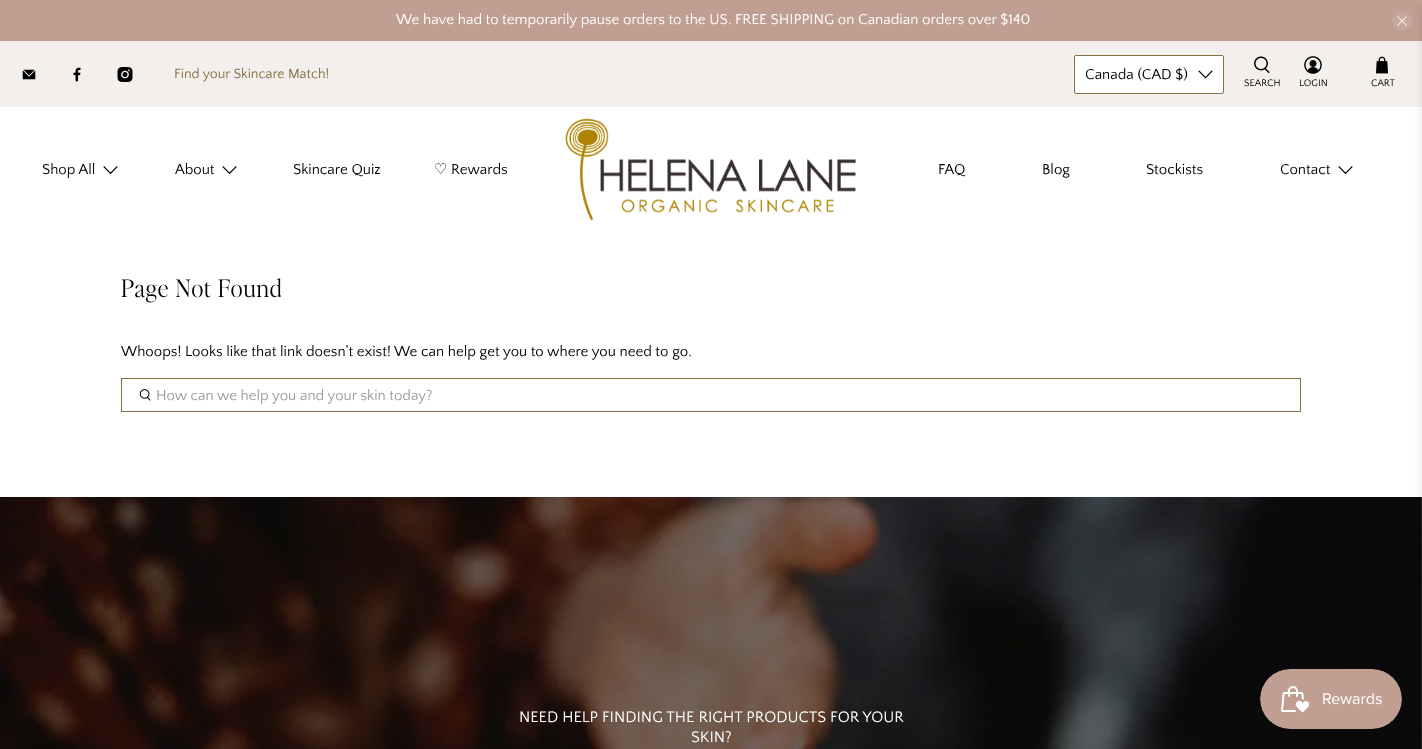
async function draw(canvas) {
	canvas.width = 1422;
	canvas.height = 749;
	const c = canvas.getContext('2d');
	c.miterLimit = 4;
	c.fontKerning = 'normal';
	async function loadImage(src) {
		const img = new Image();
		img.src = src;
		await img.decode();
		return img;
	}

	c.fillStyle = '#fff';
	c.fillRect(0, 0, 1422, 749);
	c.fillStyle = '#c09e91';
	c.fillRect(0, 0, 1422, 41);
	c.font = '15px Quattrocento Sans';
	c.fillStyle = '#fff';
	c.fillText('We have had to temporarily pause orders to the US. FREE SHIPPING on Canadian orders over $140', 396, 24);
	c.fillStyle = '#c6a89c';
	c.beginPath();
	c.arc(1402, 21, 10, 0, 2 * Math.PI);
	c.fill();
	c.drawImage(await loadImage('img1.png'), 1397, 16, 10, 10);
	c.fillStyle = '#f3efec';
	c.fillRect(0, 41, 1422, 66);
	c.drawImage(await loadImage('img12.png'), 0, 497, 1422, 252);
	c.fillStyle = '#0a0a0a1a';
	c.filter = 'blur(4px)';
	c.beginPath();
	c.rect(1422, 8, 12, 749);
	c.fill();
	c.filter = 'none';
	c.drawImage(await loadImage('img2.png'), 22, 69, 14, 11);
	c.drawImage(await loadImage('img3.png'), 73, 67, 8, 15);
	c.drawImage(await loadImage('img4.png'), 117, 67, 16, 15);
	c.font = '14px Quattrocento Sans';
	c.fillStyle = '#867142';
	c.fillText('Find your Skincare Match!', 174, 78);
	c.fillStyle = '#fff';
	c.beginPath();
	c.roundRect(1074.5, 55.5, 149, 38, 1.5);
	c.fill();
	c.strokeStyle = '#867142';
	c.stroke();
	c.font = '15px Quattrocento Sans';
	c.fillStyle = '#000';
	c.fillText('Canada (CAD $)', 1085, 79);
	c.drawImage(await loadImage('img5.png'), 1198, 70, 15, 9);
	c.drawImage(await loadImage('img6.png'), 1254, 56, 16, 18);
	c.font = '10px Quattrocento Sans';
	c.fillText('SEARCH', 1244, 86);
	c.drawImage(await loadImage('img7.png'), 1304, 56, 18, 18);
	c.fillText('LOGIN', 1299, 86);
	c.drawImage(await loadImage('img8.png'), 1376, 56, 12, 18);
	c.fillText('CART', 1371, 86);
	c.font = '15px Quattrocento Sans';
	c.fillText('Shop All', 42, 174);
	c.drawImage(await loadImage('img9.png'), 103, 166, 15, 9);
	c.fillText('About', 175, 174);
	c.drawImage(await loadImage('img9.png'), 222, 166, 15, 9);
	c.fillText('Skincare Quiz', 293, 174);
	c.font = '15px DejaVu Sans';
	c.fillText('♡', 434, 174);
	c.font = '15px Quattrocento Sans';
	c.fillText('Rewards', 451, 174);
	c.drawImage(await loadImage('img10.png'), 565, 118, 291, 103);
	for (const [text, x, y] of [
		['FAQ', 938, 174],
		['Blog', 1042, 174],
		['Stockists', 1146, 174],
		['Contact', 1280, 174],
	]) {
		c.fillText(text, x, y);
	}
	c.drawImage(await loadImage('img9.png'), 1338, 166, 15, 9);
	c.letterSpacing = '1.25px';
	c.font = '300 24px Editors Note';
	c.fillText('Page Not Found', 121, 297);
	c.letterSpacing = '0px';
	c.font = '15px Quattrocento Sans';
	c.fillText('Whoops! Looks like that link doesn\'t exist! We can help get you to where you need to go.', 121, 356);
	c.strokeRect(121.5, 378.5, 1179, 33);
	c.drawImage(await loadImage('img11.png'), 139, 389, 12, 12);
	c.fillStyle = '#9b9b9b';
	c.fillText('How can we help you and your skin today?', 156, 400);
	c.font = '16px Quattrocento Sans';
	c.fillStyle = '#fff';
	c.fillText('NEED HELP FINDING THE RIGHT PRODUCTS FOR YOUR', 519, 722);
	c.fillText('SKIN?', 691, 742);
	c.drawImage(await loadImage('img13.png'), 1260, 669, 142, 60);
}

draw(document.querySelector('canvas'));
